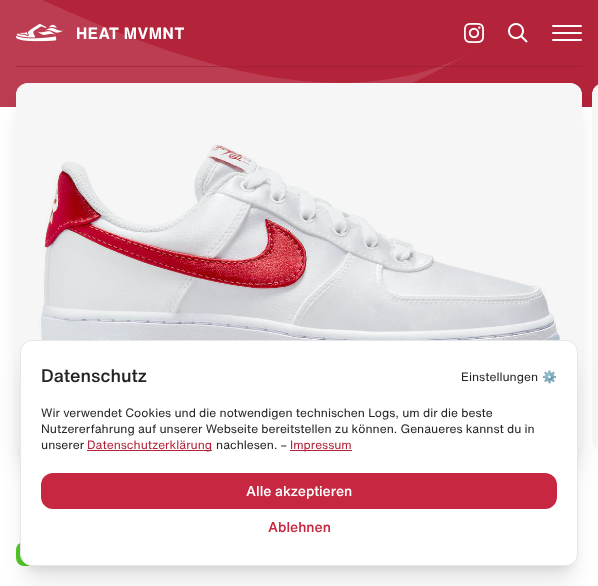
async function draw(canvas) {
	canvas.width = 598;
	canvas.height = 586;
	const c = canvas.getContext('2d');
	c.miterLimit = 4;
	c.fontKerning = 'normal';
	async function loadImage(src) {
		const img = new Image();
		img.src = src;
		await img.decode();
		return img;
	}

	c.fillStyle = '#fff';
	c.fillRect(0, 0, 598, 586);
	c.fillStyle = '#b3233a';
	c.fillRect(42, 0, 556, 107);
	c.save();
	c.beginPath();
	c.rect(0, 0, 472, 107);
	c.clip();
	c.fillStyle = '#bc3d52';
	c.beginPath();
	c.moveTo(-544, 73);
	c.bezierCurveTo(-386, -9, -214, -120, -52, -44);
	c.bezierCurveTo(109, 32, 314, 135, 473, 52);
	c.bezierCurveTo(314, 135, 139, 224, -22, 148);
	c.bezierCurveTo(-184, 72, -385, -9, -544, 73);
	c.closePath();
	c.fill();
	c.restore();
	c.drawImage(await loadImage('img1.png'), 16, 24, 48, 18);
	c.letterSpacing = '0.5px';
	c.font = 'bold 16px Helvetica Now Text';
	c.fillStyle = '#fff';
	c.fillText('HEAT MVMNT', 76, 39);
	c.drawImage(await loadImage('img2.png'), 464, 23, 20, 20);
	c.drawImage(await loadImage('img3.png'), 508, 23, 20, 20);
	c.beginPath();
	c.roundRect(552, 25, 30, 2, 1);
	c.fill();
	c.beginPath();
	c.roundRect(552, 32, 30, 2, 1);
	c.fill();
	c.beginPath();
	c.roundRect(552, 39, 30, 2, 1);
	c.fill();
	c.fillStyle = '#8c1c2e80';
	c.fillRect(16, 66, 566, 1);
	c.fillStyle = '#0000001a';
	c.filter = 'blur(5px)';
	c.beginPath();
	c.roundRect(22, 97, 554, 357, 6);
	c.fill();
	c.filter = 'none';
	c.filter = 'blur(12.5px)';
	c.beginPath();
	c.roundRect(21, 108, 556, 359, 7);
	c.fill();
	c.filter = 'none';
	c.fillStyle = '#fff';
	c.beginPath();
	c.roundRect(16, 83, 566, 369, 12);
	c.fill();
	c.drawImage(await loadImage('img4.png'), 16, 83, 566, 366);
	c.save();
	c.beginPath();
	c.roundRect(592, 83, 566, 369, 12);
	c.clip();
	c.fillRect(592, 83, 6, 369);
	c.restore();
	c.drawImage(await loadImage('img5.png'), 592, 85, 6, 365);
	c.fillStyle = '#51c727';
	c.beginPath();
	c.roundRect(16, 542, 72, 24, 8);
	c.fill();
	c.fillStyle = '#0000001a';
	c.filter = 'blur(5px)';
	c.beginPath();
	c.roundRect(26, 354, 546, 214, 6);
	c.fill();
	c.filter = 'none';
	c.filter = 'blur(12.5px)';
	c.beginPath();
	c.roundRect(25, 365, 548, 216, 7);
	c.fill();
	c.filter = 'none';
	c.fillStyle = '#fff';
	c.beginPath();
	c.roundRect(20.5, 340.5, 557, 225, 11.5);
	c.fill();
	c.strokeStyle = '#e5e7e9';
	c.stroke();
	c.letterSpacing = '0px';
	c.font = '500 18px Helvetica Now Text';
	c.fillStyle = '#272324';
	c.fillText('Datenschutz', 41, 382);
	c.font = '12px Helvetica Now Text';
	c.fillText('Einstellungen', 461, 381);
	c.font = '12px Noto Color Emoji';
	c.fillText('⚙️', 542, 381);
	c.font = '12px Helvetica Now Text';
	for (const [text, x, y] of [
		['Wir verwendet Cookies und die notwendigen technischen Logs, um dir die beste', 41, 417],
		['Nutzererfahrung auf unserer Webseite bereitstellen zu können. Genaueres kannst du in', 41, 433],
		['unserer', 41, 449],
	]) {
		c.fillText(text, x, y);
	}
	c.fillStyle = '#b3233a';
	c.fillRect(87, 450, 125, 1);
	c.fillText('Datenschutzerklärung', 87, 449);
	c.fillStyle = '#272324';
	c.fillText('nachlesen. –', 216, 449);
	c.fillStyle = '#b3233a';
	c.fillRect(290, 450, 62, 1);
	c.fillText('Impressum', 290, 449);
	c.fillStyle = '#c72740';
	c.beginPath();
	c.roundRect(41, 473, 516, 36, 12);
	c.fill();
	c.font = '500 14px Helvetica Now Text';
	c.fillStyle = '#fff';
	c.fillText('Alle akzeptieren', 246, 496);
	c.fillStyle = '#c72740';
	c.fillText('Ablehnen', 268, 532);
}

draw(document.querySelector('canvas'));
